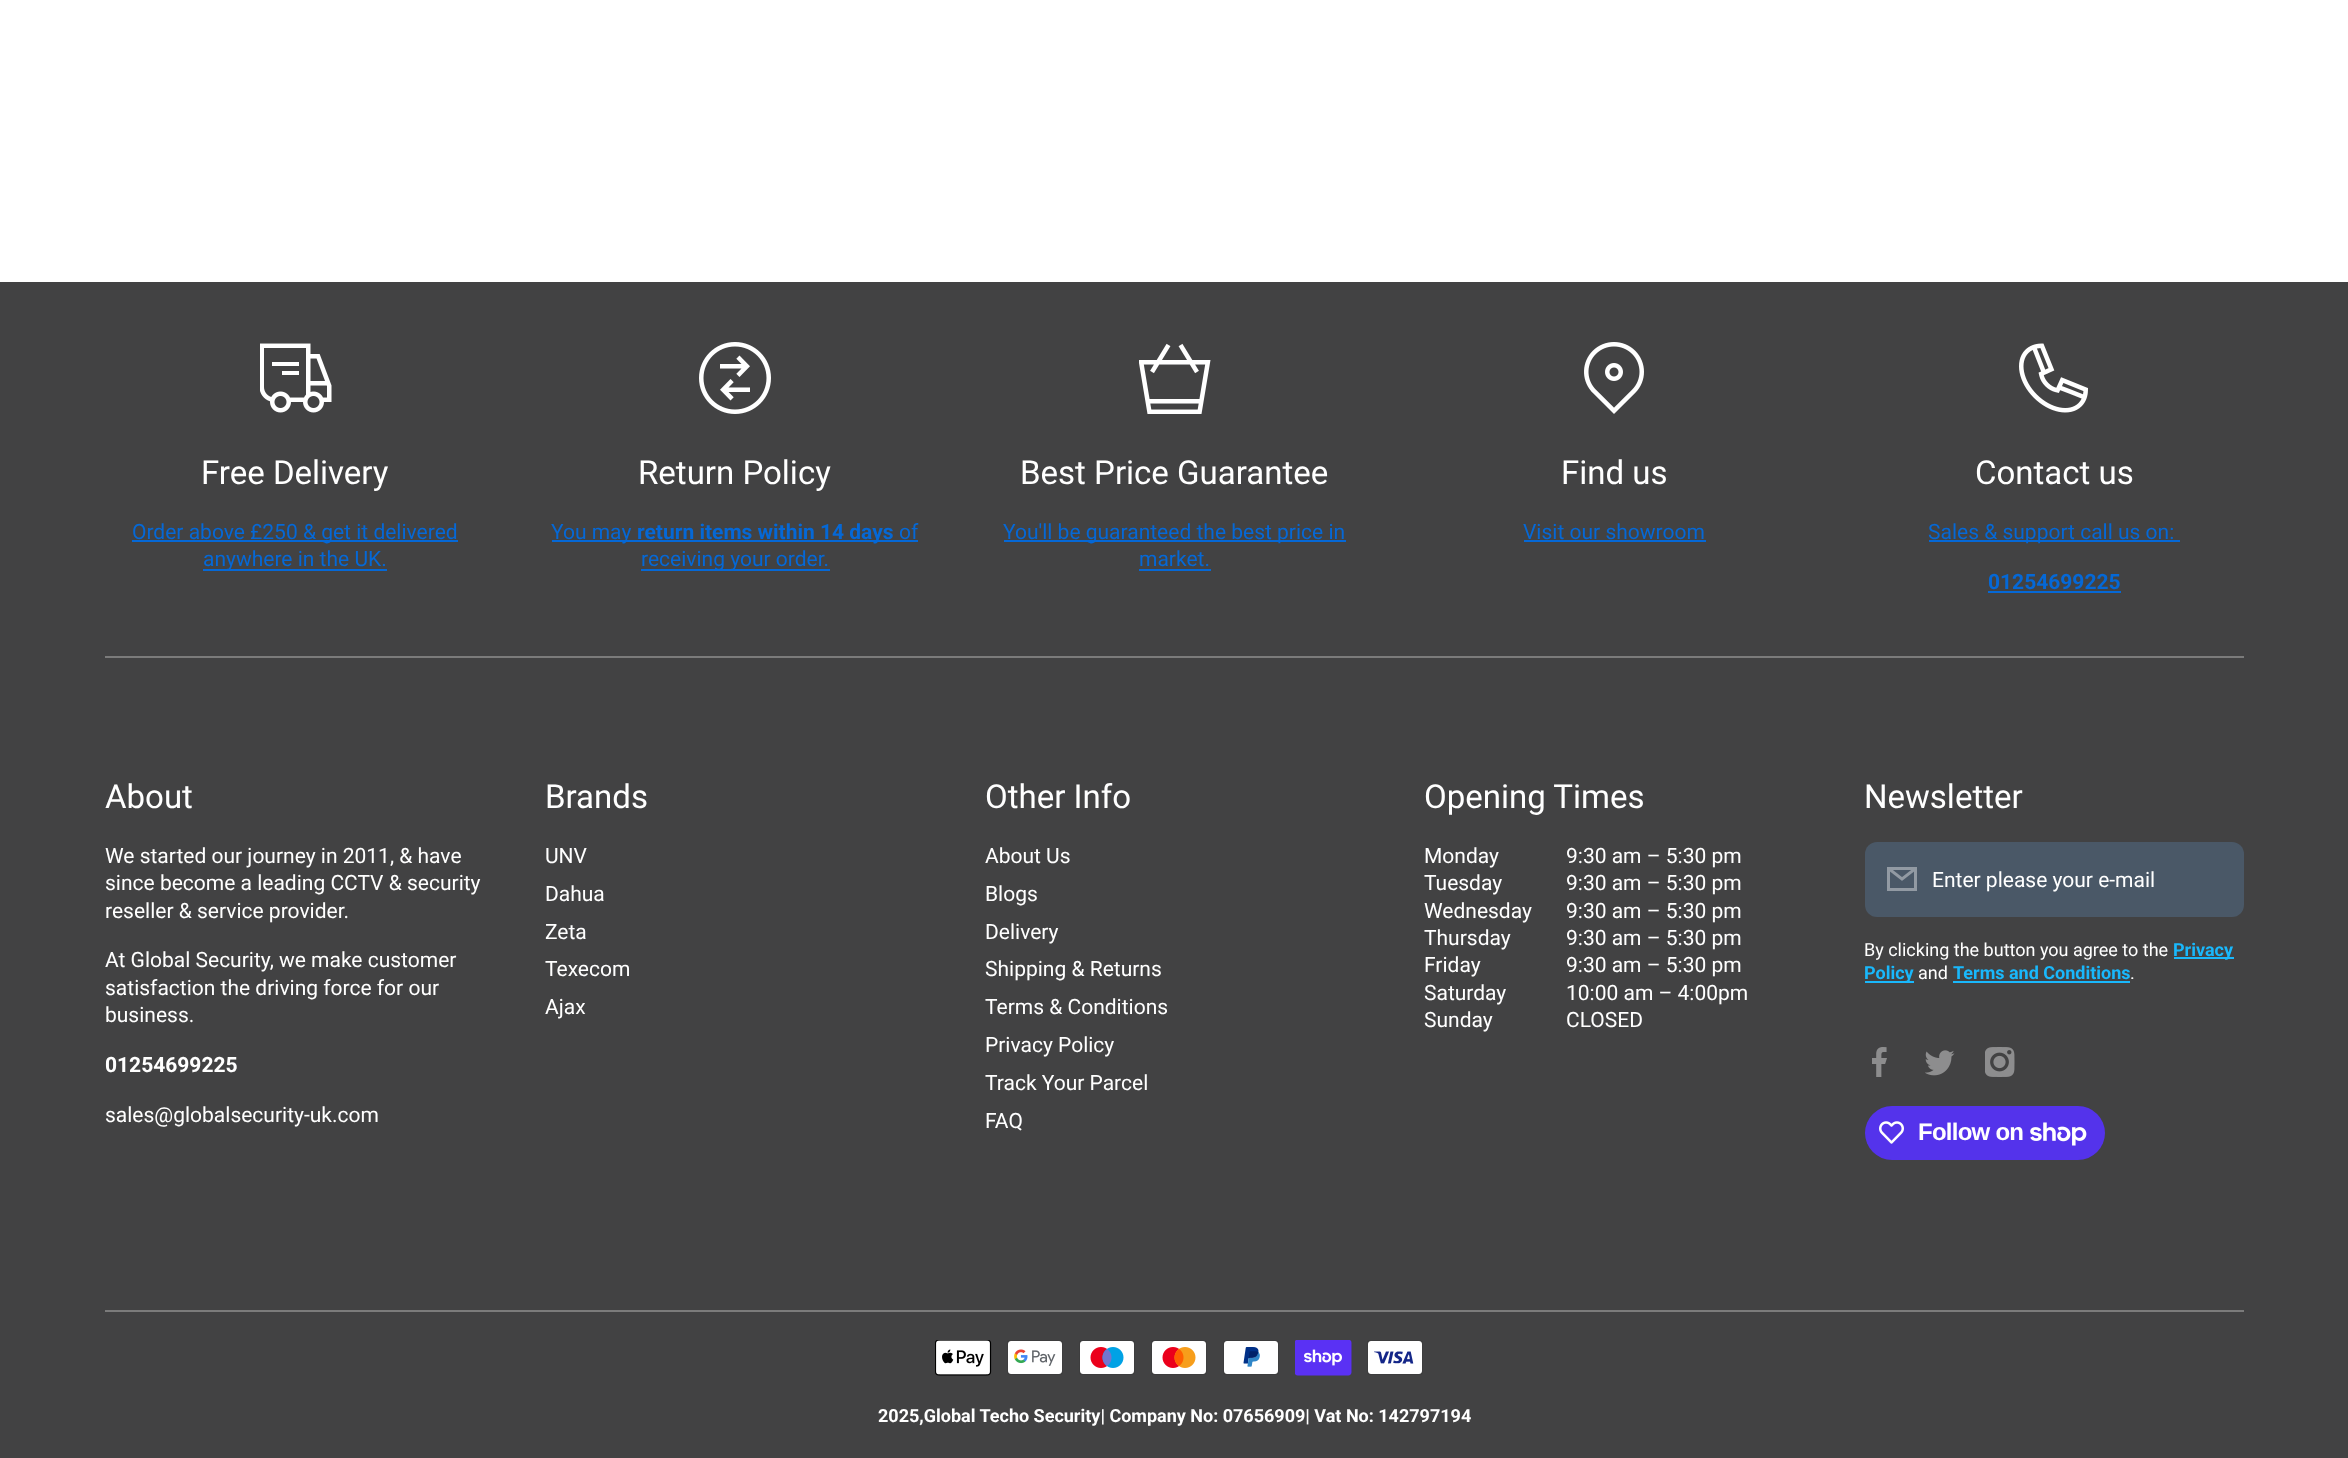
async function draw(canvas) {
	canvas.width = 2348;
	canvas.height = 1458;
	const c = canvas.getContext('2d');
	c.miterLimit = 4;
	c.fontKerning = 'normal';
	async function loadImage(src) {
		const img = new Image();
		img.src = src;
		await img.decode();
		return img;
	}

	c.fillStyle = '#fff';
	c.fillRect(0, 0, 2348, 1458);
	c.fillStyle = '#424243';
	c.fillRect(0, 282, 2348, 1176);
	c.drawImage(await loadImage('img1.png'), 260, 343, 72, 70);
	c.font = '33px Roboto';
	c.fillStyle = '#fff';
	c.fillText('Free Delivery', 201, 484);
	c.fillStyle = '#0568d6';
	c.fillRect(132, 540, 326, 2);
	c.font = '21px Roboto';
	c.fillText('Order above £250 & get it delivered', 132, 539);
	c.fillRect(203, 569, 184, 2);
	c.fillText('anywhere in the UK.', 203, 566);
	c.drawImage(await loadImage('img2.png'), 699, 342, 72, 72);
	c.font = '33px Roboto';
	c.fillStyle = '#fff';
	c.fillText('Return Policy', 638, 484);
	c.fillStyle = '#0568d6';
	c.fillRect(552, 540, 366, 2);
	c.font = '21px Roboto';
	c.fillText('You may', 551, 539);
	c.font = 'bold 21px Roboto';
	c.fillText('return items within 14 days', 637, 539);
	c.font = '21px Roboto';
	c.fillText('of', 899, 539);
	c.fillRect(641, 569, 189, 2);
	c.fillText('receiving your order.', 641, 566);
	c.drawImage(await loadImage('img3.png'), 1139, 343, 72, 71);
	c.font = '33px Roboto';
	c.fillStyle = '#fff';
	c.fillText('Best Price Guarantee', 1020, 484);
	c.fillStyle = '#0568d6';
	c.fillRect(1004, 540, 342, 2);
	c.font = '21px Roboto';
	c.fillText('You\'ll be guaranteed the best price in', 1003, 539);
	c.fillText('market.', 1139, 566);
	c.fillRect(1139, 569, 72, 2);
	c.drawImage(await loadImage('img4.png'), 1584, 342, 60, 72);
	c.font = '33px Roboto';
	c.fillStyle = '#fff';
	c.fillText('Find us', 1561, 484);
	c.font = '21px Roboto';
	c.fillStyle = '#0568d6';
	c.fillText('Visit our showroom', 1523, 539);
	c.fillRect(1524, 540, 182, 2);
	c.drawImage(await loadImage('img5.png'), 2019, 343, 69, 70);
	c.font = '33px Roboto';
	c.fillStyle = '#fff';
	c.fillText('Contact us', 1975, 484);
	c.fillStyle = '#0568d6';
	c.fillRect(1929, 540, 251, 2);
	c.font = '21px Roboto';
	c.fillText('Sales & support call us on:', 1928, 539);
	c.font = 'bold 21px Roboto';
	c.fillText('01254699225', 1988, 589);
	c.fillRect(1988, 591, 133, 2);
	c.fillStyle = '#7b7b7b';
	c.fillRect(105, 656, 2139, 2);
	c.font = '33px Roboto';
	c.fillStyle = '#fff';
	c.fillText('About', 105, 808);
	c.font = '21px Roboto';
	for (const [text, x, y] of [
		['We started our journey in 2011, & have', 105, 863],
		['since become a leading CCTV & security', 105, 890],
		['reseller & service provider.', 105, 918],
		['At Global Security, we make customer', 105, 967],
		['satisfaction the driving force for our', 105, 995],
		['business.', 105, 1022],
	]) {
		c.fillText(text, x, y);
	}
	c.font = 'bold 21px Roboto';
	c.fillText('01254699225', 105, 1072);
	c.font = '21px Roboto';
	c.fillText('sales@globalsecurity-uk.com', 105, 1122);
	c.font = '33px Roboto';
	c.fillText('Brands', 545, 808);
	c.font = '21px Roboto';
	for (const [text, x, y] of [
		['UNV', 545, 863],
		['Dahua', 545, 901],
		['Zeta', 545, 939],
		['Texecom', 545, 976],
		['Ajax', 545, 1014],
	]) {
		c.fillText(text, x, y);
	}
	c.font = '33px Roboto';
	c.fillText('Other Info', 985, 808);
	c.font = '21px Roboto';
	for (const [text, x, y] of [
		['About Us', 985, 863],
		['Blogs', 985, 901],
		['Delivery', 985, 939],
		['Shipping & Returns', 985, 976],
		['Terms & Conditions', 985, 1014],
		['Privacy Policy', 985, 1052],
		['Track Your Parcel', 985, 1090],
		['FAQ', 985, 1128],
	]) {
		c.fillText(text, x, y);
	}
	c.font = '33px Roboto';
	c.fillText('Opening Times', 1424, 808);
	c.font = '21px Roboto';
	for (const [text, x, y] of [
		['Monday', 1424, 863],
		['9:30 am – 5:30 pm', 1566, 863],
		['Tuesday', 1424, 890],
		['9:30 am – 5:30 pm', 1566, 890],
		['Wednesday', 1424, 918],
		['9:30 am – 5:30 pm', 1566, 918],
		['Thursday', 1424, 945],
		['9:30 am – 5:30 pm', 1566, 945],
		['Friday', 1424, 972],
		['9:30 am – 5:30 pm', 1566, 972],
		['Saturday', 1424, 1000],
		['10:00 am – 4:00pm', 1566, 1000],
		['Sunday', 1424, 1027],
		['CLOSED', 1566, 1027],
	]) {
		c.fillText(text, x, y);
	}
	c.font = '33px Roboto';
	c.fillText('Newsletter', 1864, 808);
	c.fillStyle = '#4a5867';
	c.beginPath();
	c.roundRect(1865, 842, 379, 75, 12);
	c.fill();
	c.drawImage(await loadImage('img6.png'), 1887, 867, 30, 24);
	c.font = '21px Roboto';
	c.fillStyle = '#fff';
	c.fillText('Enter please your e-mail', 1932, 887);
	c.font = '18px Roboto';
	c.fillText('By clicking the button you agree to the', 1864, 956);
	c.fillStyle = '#19b8fc';
	c.fillRect(2174, 957, 60, 2);
	c.font = 'bold 18px Roboto';
	c.fillText('Privacy', 2173, 956);
	c.fillRect(1865, 981, 49, 2);
	c.fillText('Policy', 1864, 979);
	c.font = '18px Roboto';
	c.fillStyle = '#fff';
	c.fillText('and', 1918, 979);
	c.font = 'bold 18px Roboto';
	c.fillStyle = '#19b8fc';
	c.fillText('Terms and Conditions', 1953, 979);
	c.fillRect(1953, 981, 177, 2);
	c.font = '18px Roboto';
	c.fillStyle = '#fff';
	c.fillText('.', 2130, 979);
	c.drawImage(await loadImage('img7.png'), 1872, 1047, 15, 30);
	c.drawImage(await loadImage('img8.png'), 1925, 1050, 30, 26);
	c.drawImage(await loadImage('img9.png'), 1985, 1047, 30, 30);
	c.fillStyle = '#5433eb';
	c.beginPath();
	c.roundRect(1865, 1106, 240, 54, 27);
	c.fill();
	c.drawImage(await loadImage('img10.png'), 1879, 1121, 25, 23);
	c.letterSpacing = '-0.75px';
	c.font = 'bold 24px Liberation Sans';
	c.fillStyle = '#fff';
	c.fillText('Follow on', 1918, 1140);
	c.drawImage(await loadImage('img11.png'), 2030, 1122, 57, 24);
	c.fillStyle = '#7b7b7b';
	c.fillRect(105, 1310, 2139, 2);
	c.drawImage(await loadImage('img12.png'), 935, 1340, 57, 36);
	c.drawImage(await loadImage('img13.png'), 1007, 1340, 56, 35);
	c.drawImage(await loadImage('img14.png'), 1079, 1340, 56, 35);
	c.drawImage(await loadImage('img15.png'), 1151, 1340, 56, 35);
	c.drawImage(await loadImage('img16.png'), 1223, 1340, 56, 35);
	c.drawImage(await loadImage('img17.png'), 1295, 1340, 57, 36);
	c.drawImage(await loadImage('img18.png'), 1367, 1340, 56, 35);
	c.letterSpacing = '0px';
	c.font = 'bold 18px Roboto';
	c.fillStyle = '#fff';
	c.fillText('2025,Global Techo Security| Company No: 07656909| Vat No: 142797194', 878, 1422);
}

draw(document.querySelector('canvas'));
